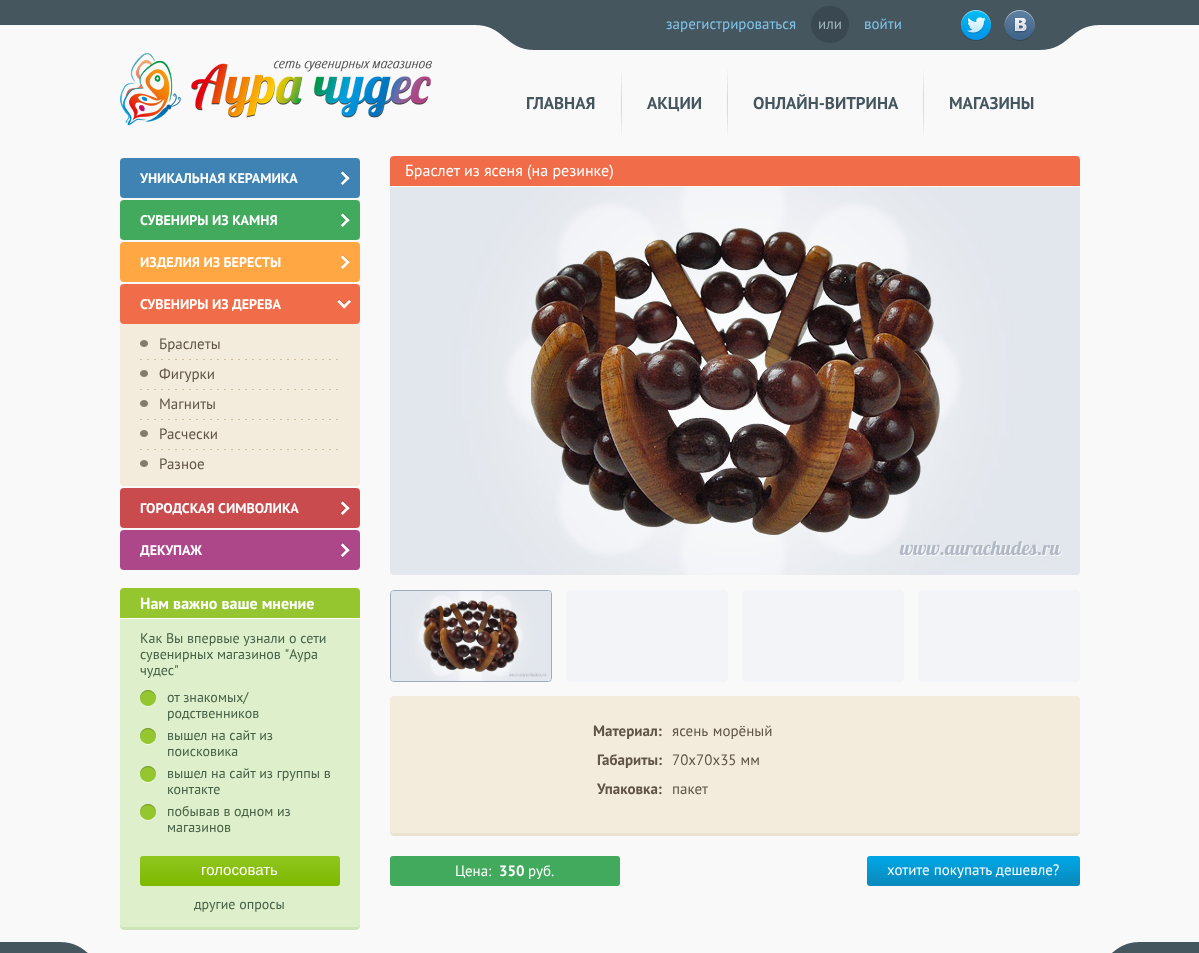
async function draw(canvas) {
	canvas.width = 1199;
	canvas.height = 953;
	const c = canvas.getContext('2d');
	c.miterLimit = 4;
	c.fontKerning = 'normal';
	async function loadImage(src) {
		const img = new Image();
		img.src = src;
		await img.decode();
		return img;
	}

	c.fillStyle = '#f9f9f9';
	c.fillRect(0, 0, 1199, 953);
	c.fillStyle = '#45565f';
	c.fillRect(0, 0, 1199, 25);
	c.drawImage(await loadImage('img1.png'), 476, 25, 623, 25);
	c.font = '15px PT Sans';
	c.fillStyle = '#7fc5eb';
	c.fillText('зарегистрироваться', 666, 29);
	c.fillStyle = '#3a4951';
	c.beginPath();
	c.roundRect(811, 6, 38, 37, 18.5);
	c.fill();
	c.fillStyle = '#a1b3bc';
	c.fillText('или', 818, 29);
	c.fillStyle = '#7fc5eb';
	c.fillText('войти', 864, 29);
	c.drawImage(await loadImage('img2.png'), 961, 10, 30, 31);
	c.drawImage(await loadImage('img3.png'), 1004, 10, 31, 31);
	c.drawImage(await loadImage('img4.png'), 120, 53, 312, 72);
	c.font = 'bold 17px PT Sans';
	c.fillStyle = '#45565f';
	c.fillText('ГЛАВНАЯ', 526, 109);
	c.drawImage(await loadImage('img5.png'), 621, 69, 1, 69);
	c.fillText('АКЦИИ', 647, 109);
	c.drawImage(await loadImage('img5.png'), 727, 69, 1, 69);
	c.fillText('ОНЛАЙН-ВИТРИНА', 753, 109);
	c.drawImage(await loadImage('img5.png'), 923, 69, 1, 69);
	c.fillText('МАГАЗИНЫ', 949, 109);
	c.fillStyle = '#3e83b3';
	c.beginPath();
	c.roundRect(120, 158, 240, 40, 4);
	c.fill();
	c.font = 'bold 14px PT Sans';
	c.fillStyle = '#fff';
	c.fillText('УНИКАЛЬНАЯ КЕРАМИКА', 140, 183);
	c.drawImage(await loadImage('img6.png'), 340, 170, 10, 15);
	c.fillStyle = '#41aa5d';
	c.beginPath();
	c.roundRect(120, 200, 240, 40, 4);
	c.fill();
	c.fillStyle = '#fff';
	c.fillText('СУВЕНИРЫ ИЗ КАМНЯ', 140, 225);
	c.drawImage(await loadImage('img7.png'), 340, 212, 10, 15);
	c.fillStyle = '#ffa742';
	c.beginPath();
	c.roundRect(120, 242, 240, 40, 4);
	c.fill();
	c.fillStyle = '#fff';
	c.fillText('ИЗДЕЛИЯ ИЗ БЕРЕСТЫ', 140, 267);
	c.drawImage(await loadImage('img8.png'), 340, 254, 10, 15);
	c.fillStyle = '#f16d49';
	c.beginPath();
	c.roundRect(120, 284, 240, 40, 4);
	c.fill();
	c.fillStyle = '#fff';
	c.fillText('СУВЕНИРЫ ИЗ ДЕРЕВА', 140, 309);
	c.drawImage(await loadImage('img9.png'), 337, 299, 14, 10);
	c.fillStyle = '#f3ecdd';
	c.beginPath();
	c.roundRect(120, 324, 240, 162, [0, 0, 4, 4]);
	c.fill();
	c.drawImage(await loadImage('img10.png'), 140, 340, 8, 7);
	c.font = '15px PT Sans';
	c.fillStyle = '#5f5445';
	c.fillText('Браслеты', 159, 349);
	c.drawImage(await loadImage('img11.png'), 140, 359, 198, 1);
	c.drawImage(await loadImage('img10.png'), 140, 370, 8, 7);
	c.fillText('Фигурки', 159, 379);
	c.drawImage(await loadImage('img11.png'), 140, 389, 198, 1);
	c.drawImage(await loadImage('img10.png'), 140, 400, 8, 7);
	c.fillText('Магниты', 159, 409);
	c.drawImage(await loadImage('img11.png'), 140, 419, 198, 1);
	c.drawImage(await loadImage('img10.png'), 140, 430, 8, 7);
	c.fillText('Расчески', 159, 439);
	c.drawImage(await loadImage('img11.png'), 140, 449, 198, 1);
	c.drawImage(await loadImage('img10.png'), 140, 460, 8, 7);
	c.fillText('Разное', 159, 469);
	c.fillStyle = '#ca4b4e';
	c.beginPath();
	c.roundRect(120, 488, 240, 40, 4);
	c.fill();
	c.font = 'bold 14px PT Sans';
	c.fillStyle = '#fff';
	c.fillText('ГОРОДСКАЯ СИМВОЛИКА', 140, 513);
	c.drawImage(await loadImage('img12.png'), 340, 500, 10, 15);
	c.fillStyle = '#ad478a';
	c.beginPath();
	c.roundRect(120, 530, 240, 40, 4);
	c.fill();
	c.fillStyle = '#fff';
	c.fillText('ДЕКУПАЖ', 140, 555);
	c.drawImage(await loadImage('img13.png'), 340, 542, 10, 15);
	c.fillStyle = '#95c630';
	c.beginPath();
	c.roundRect(120, 588, 240, 31, [4, 4, 0, 0]);
	c.fill();
	c.fillStyle = '#fff';
	c.fillRect(120, 618, 240, 1);
	c.font = 'bold 16px PT Sans';
	c.fillText('Нам важно ваше мнение', 140, 609);
	c.fillStyle = '#ddf0cb';
	c.fillRect(120, 619, 240, 237);
	c.font = '14px PT Sans';
	c.fillStyle = '#465f45';
	for (const [text, x, y] of [
		['Как Вы впервые узнали о сети', 140, 643],
		['сувенирных магазинов "Аура', 140, 659],
		['чудес"', 140, 675],
	]) {
		c.fillText(text, x, y);
	}
	c.drawImage(await loadImage('img14.png'), 140, 690, 16, 17);
	c.fillText('от знакомых/', 167, 702);
	c.fillText('родственников', 167, 718);
	c.drawImage(await loadImage('img14.png'), 140, 728, 16, 17);
	c.fillText('вышел на сайт из', 167, 740);
	c.fillText('поисковика', 167, 756);
	c.drawImage(await loadImage('img14.png'), 140, 766, 16, 17);
	c.fillText('вышел на сайт из группы в', 167, 778);
	c.fillText('контакте', 167, 794);
	c.drawImage(await loadImage('img14.png'), 140, 804, 16, 17);
	c.fillText('побывав в одном из', 167, 816);
	c.fillText('магазинов', 167, 832);
	c.fillStyle = '#cee5b9';
	c.beginPath();
	c.moveTo(120, 923);
	c.lineTo(120, 926);
	c.bezierCurveTo(120, 928, 122, 930, 124, 930);
	c.lineTo(356, 930);
	c.bezierCurveTo(358, 930, 360, 928, 360, 926);
	c.lineTo(360, 923);
	c.bezierCurveTo(360, 925, 358, 927, 356, 927);
	c.lineTo(124, 927);
	c.bezierCurveTo(122, 927, 120, 925, 120, 923);
	c.closePath();
	c.fill();
	c.fillStyle = '#ddf0cb';
	c.beginPath();
	c.roundRect(120, 856, 240, 71, [0, 0, 4, 4]);
	c.fill();
	c.drawImage(await loadImage('img15.png'), 140, 856, 200, 30);
	c.font = '15px Liberation Sans';
	c.fillStyle = '#fff';
	c.fillText('голосовать', 201, 875);
	c.font = '14px PT Sans';
	c.fillStyle = '#465f45';
	c.fillText('другие опросы', 194, 909);
	c.fillStyle = '#f16d49';
	c.beginPath();
	c.roundRect(390, 156, 690, 30, [4, 4, 0, 0]);
	c.fill();
	c.font = '16px PT Sans';
	c.fillStyle = '#fff';
	c.fillText('Браслет из ясеня (на резинке)', 405, 176);
	c.drawImage(await loadImage('img16.png'), 390, 187, 690, 388);
	c.beginPath();
	c.roundRect(390.5, 590.5, 161, 91, 3.5);
	c.strokeStyle = '#9facbc';
	c.stroke();
	c.drawImage(await loadImage('img17.png'), 391, 591, 160, 90);
	c.fillStyle = '#f2f4f7';
	c.beginPath();
	c.roundRect(566, 590, 162, 92, 4);
	c.fill();
	c.beginPath();
	c.roundRect(742, 590, 162, 92, 4);
	c.fill();
	c.beginPath();
	c.roundRect(918, 590, 162, 92, 4);
	c.fill();
	c.fillStyle = '#eae1ce';
	c.beginPath();
	c.moveTo(390, 829);
	c.lineTo(390, 832);
	c.bezierCurveTo(390, 834, 392, 836, 394, 836);
	c.lineTo(1076, 836);
	c.bezierCurveTo(1078, 836, 1080, 834, 1080, 832);
	c.lineTo(1080, 829);
	c.bezierCurveTo(1080, 831, 1078, 833, 1076, 833);
	c.lineTo(394, 833);
	c.bezierCurveTo(392, 833, 390, 831, 390, 829);
	c.closePath();
	c.fill();
	c.fillStyle = '#f3ecdd';
	c.beginPath();
	c.roundRect(390, 696, 690, 137, 4);
	c.fill();
	c.font = 'bold 15px PT Sans';
	c.fillStyle = '#5f5445';
	c.fillText('Материал:', 593, 736);
	c.wordSpacing = '1px';
	c.font = '15px PT Sans';
	c.fillText('ясень морёный', 672, 736);
	c.wordSpacing = '0px';
	c.font = 'bold 15px PT Sans';
	c.fillText('Габариты:', 597, 765);
	c.font = '15px PT Sans';
	c.fillText('70х70х35 мм', 672, 765);
	c.font = 'bold 15px PT Sans';
	c.fillText('Упаковка:', 597, 794);
	c.font = '15px PT Sans';
	c.fillText('пакет', 672, 794);
	c.fillStyle = '#41aa5d';
	c.beginPath();
	c.roundRect(390, 856, 230, 30, 3);
	c.fill();
	c.fillStyle = '#fff';
	c.fillText('Цена:', 455, 876);
	c.font = 'bold 15px PT Sans';
	c.fillText('350', 499, 876);
	c.font = '15px PT Sans';
	c.fillText('руб.', 528, 876);
	c.drawImage(await loadImage('img18.png'), 867, 856, 213, 30);
	c.fillText('хотите покупать дешевле?', 887, 875);
	c.fillStyle = '#45565f';
	c.fillRect(0, 942, 1199, 11);
	c.drawImage(await loadImage('img19.png'), 61, 942, 1078, 11);
}

draw(document.querySelector('canvas'));
